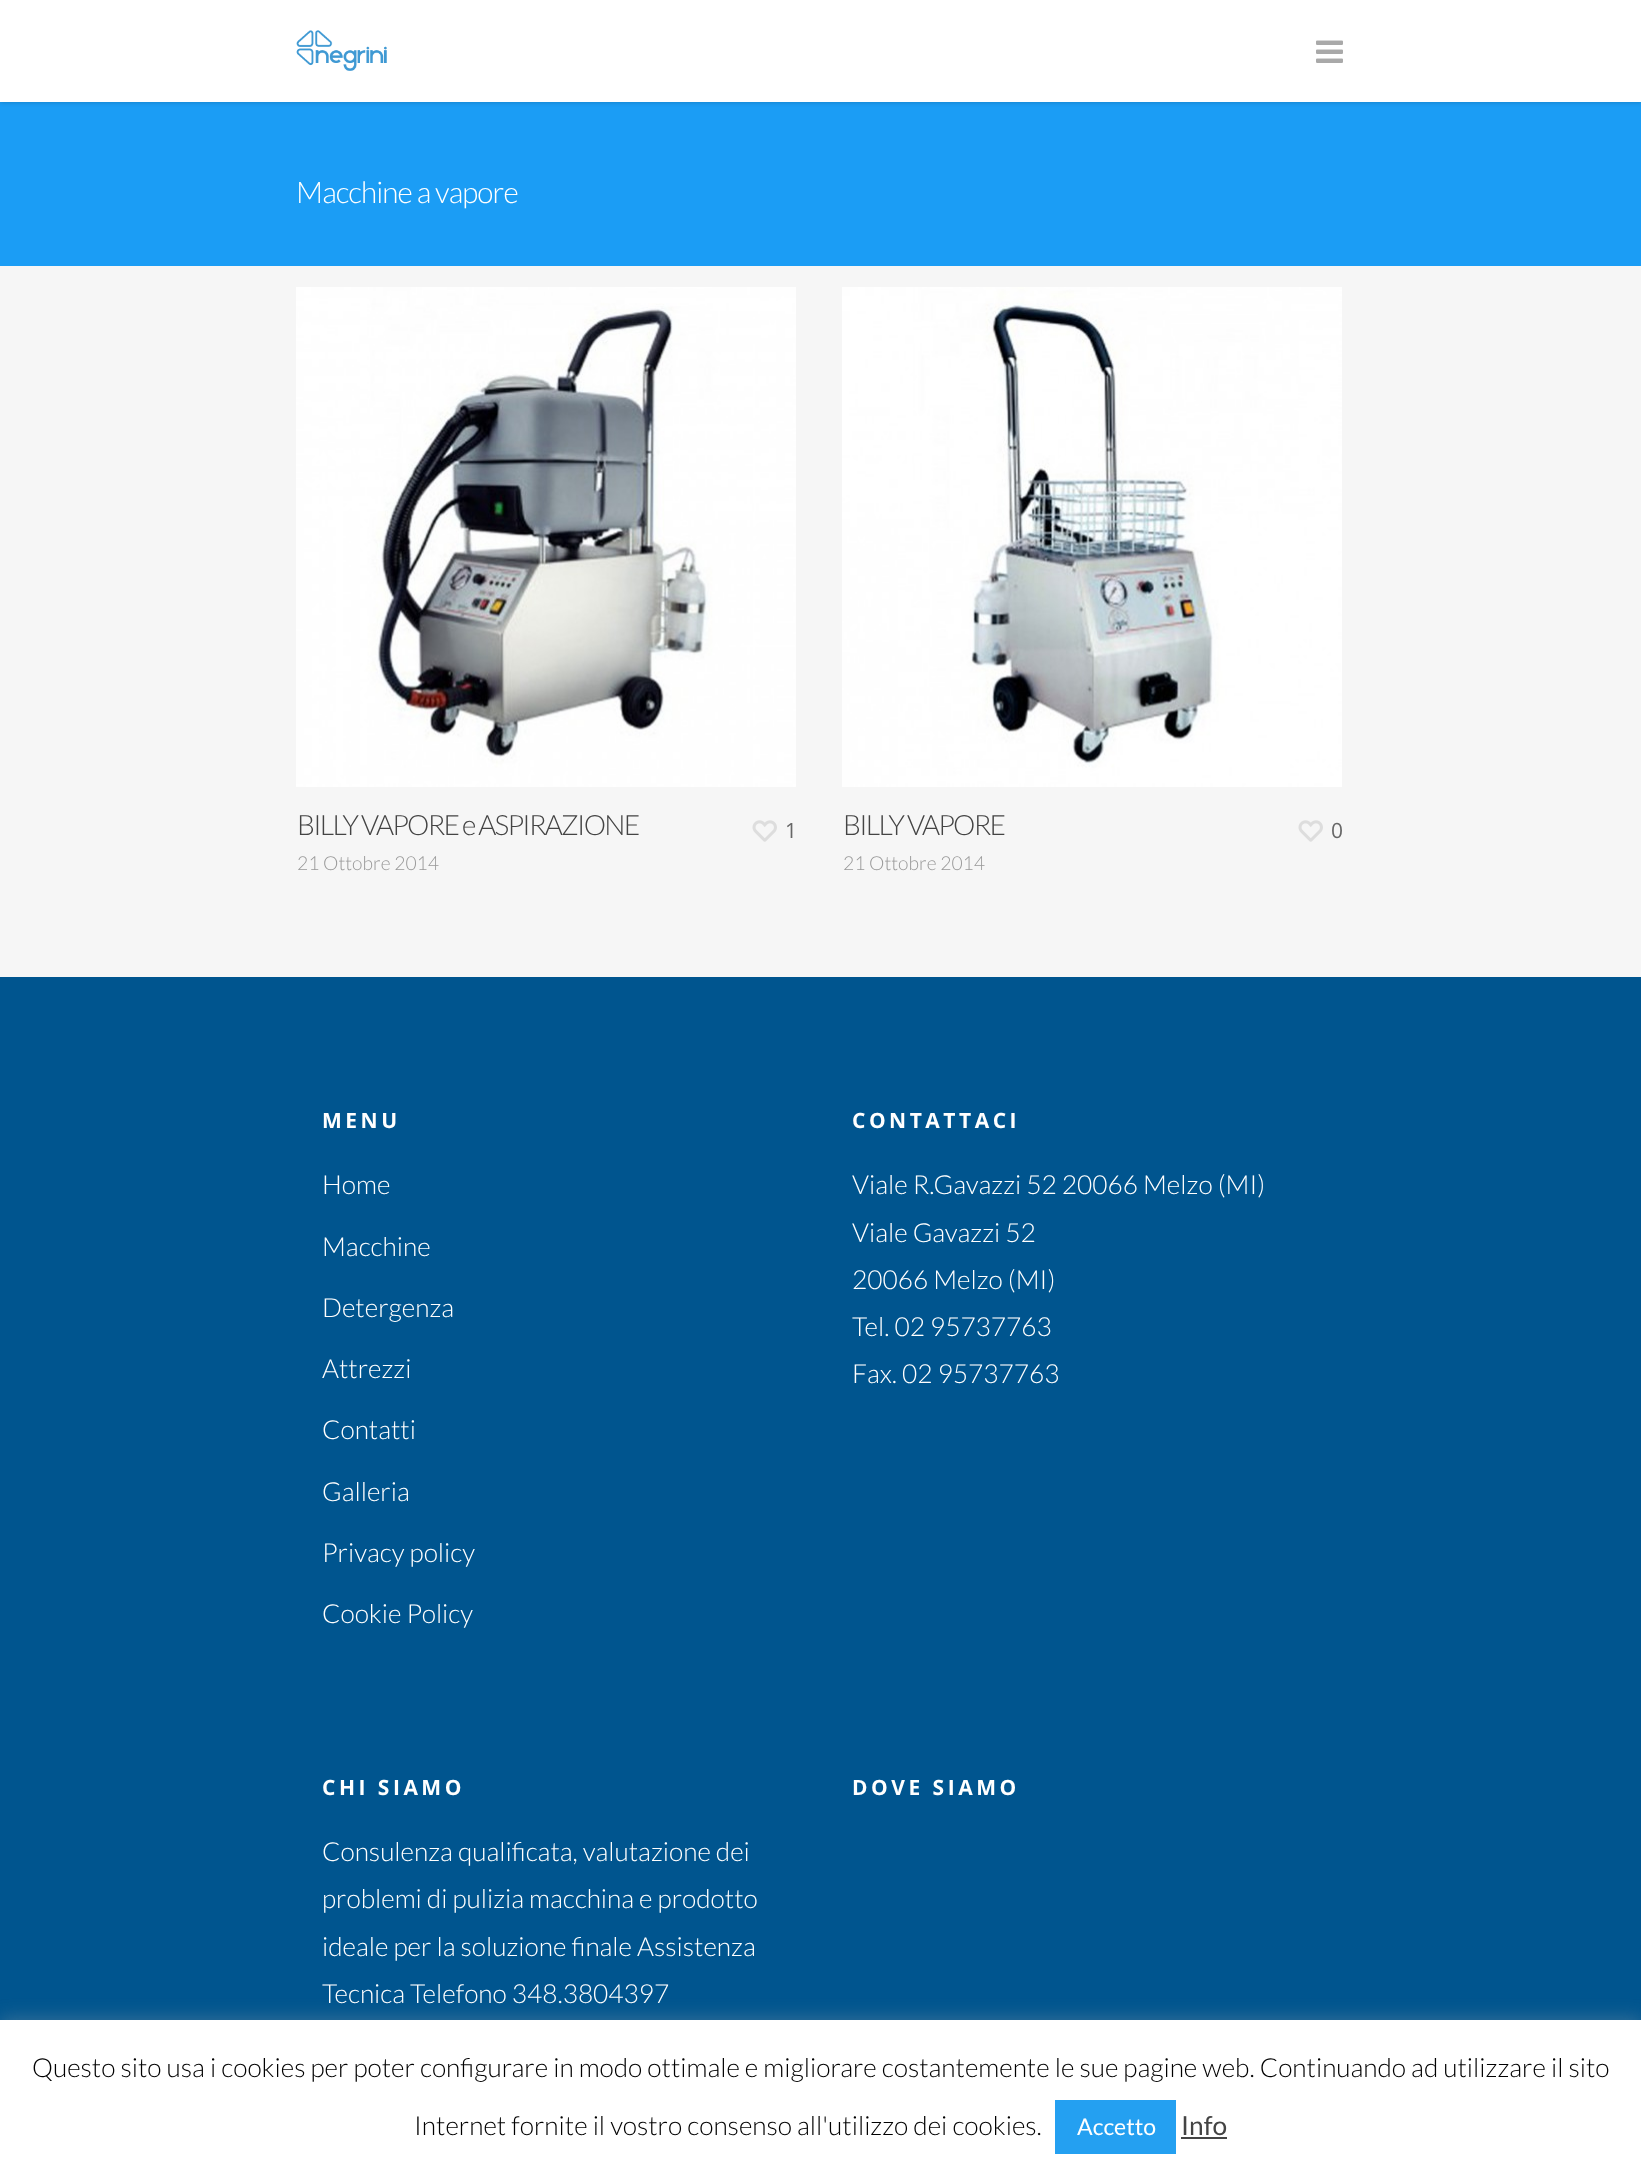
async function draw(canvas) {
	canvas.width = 1641;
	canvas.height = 2174;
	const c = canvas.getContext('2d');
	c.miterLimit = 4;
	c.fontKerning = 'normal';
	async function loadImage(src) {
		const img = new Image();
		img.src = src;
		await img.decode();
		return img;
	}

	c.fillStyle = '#1b9df5';
	c.fillRect(0, 0, 1641, 2174);
	c.fillStyle = '#00000038';
	c.filter = 'blur(2.5px)';
	c.beginPath();
	c.rect(0, 0, 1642, 102);
	c.fill();
	c.filter = 'none';
	c.fillStyle = '#fff';
	c.fillRect(0, 0, 1641, 102);
	c.drawImage(await loadImage('img1.png'), 296, 30, 91, 41);
	c.drawImage(await loadImage('img2.png'), 1316, 40, 27, 23);
	c.letterSpacing = '-0.9px';
	c.font = '300 29.75px Lato';
	c.fillText('Macchine a vapore', 296, 203);
	c.fillStyle = '#f6f6f6';
	c.fillRect(0, 266, 1641, 711);
	c.drawImage(await loadImage('img3.png'), 296, 287, 500, 500);
	c.letterSpacing = '-1.75px';
	c.font = '300 28px Lato';
	c.fillStyle = '#444';
	c.fillText('BILLY VAPORE e ASPIRAZIONE', 297, 835);
	c.letterSpacing = '0px';
	c.font = '300 19.25px Lato';
	c.fillStyle = '#999';
	c.fillText('21 Ottobre 2014', 297, 870);
	c.drawImage(await loadImage('img4.png'), 752, 820, 25, 22);
	c.font = '21px Open Sans';
	c.fillStyle = '#676767';
	c.fillText('1', 785, 838);
	c.drawImage(await loadImage('img5.png'), 842, 287, 500, 500);
	c.letterSpacing = '-1.75px';
	c.font = '300 28px Lato';
	c.fillStyle = '#444';
	c.fillText('BILLY VAPORE', 843, 835);
	c.letterSpacing = '0px';
	c.font = '300 19.25px Lato';
	c.fillStyle = '#999';
	c.fillText('21 Ottobre 2014', 843, 870);
	c.drawImage(await loadImage('img4.png'), 1298, 820, 25, 22);
	c.font = '21px Open Sans';
	c.fillStyle = '#676767';
	c.fillText('0', 1331, 838);
	c.fillStyle = '#00558f';
	c.fillRect(0, 977, 1641, 1043);
	c.letterSpacing = '3.5px';
	c.font = 'bold 21px Open Sans';
	c.fillStyle = '#fff';
	c.fillText('MENU', 322, 1128);
	c.letterSpacing = '0px';
	c.font = '300 26.25px Lato';
	for (const [text, x, y] of [
		['Home', 322, 1194],
		['Macchine', 322, 1256],
		['Detergenza', 322, 1317],
		['Attrezzi', 322, 1378],
		['Contatti', 322, 1439],
		['Galleria', 322, 1501],
		['Privacy policy', 322, 1562],
		['Cookie Policy', 322, 1623],
	]) {
		c.fillText(text, x, y);
	}
	c.letterSpacing = '3.5px';
	c.font = 'bold 21px Open Sans';
	c.fillText('CONTATTACI', 852, 1128);
	c.letterSpacing = '0px';
	c.font = '300 26.25px Lato';
	for (const [text, x, y] of [
		['Viale R.Gavazzi 52 20066 Melzo (MI)', 852, 1194],
		['Viale Gavazzi 52', 852, 1242],
		['20066 Melzo (MI)', 852, 1289],
		['Tel. 02 95737763', 852, 1336],
		['Fax. 02 95737763', 852, 1383],
	]) {
		c.fillText(text, x, y);
	}
	c.letterSpacing = '3.5px';
	c.font = 'bold 21px Open Sans';
	c.fillText('CHI SIAMO', 322, 1795);
	c.letterSpacing = '0px';
	c.font = '300 26.25px Lato';
	for (const [text, x, y] of [
		['Consulenza qualificata, valutazione dei', 322, 1861],
		['problemi di pulizia macchina e prodotto', 322, 1908],
		['ideale per la soluzione finale Assistenza', 322, 1956],
		['Tecnica Telefono 348.3804397', 322, 2003],
	]) {
		c.fillText(text, x, y);
	}
	c.letterSpacing = '3.5px';
	c.font = 'bold 21px Open Sans';
	c.fillText('DOVE SIAMO', 852, 1795);
	c.fillStyle = '#acabab4d';
	c.filter = 'blur(9px)';
	c.beginPath();
	c.rect(0, 2018, 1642, 156);
	c.fill();
	c.filter = 'none';
	c.fillStyle = '#fff';
	c.fillRect(0, 2020, 1641, 154);
	c.letterSpacing = '0px';
	c.font = '300 26.25px Lato';
	c.fillStyle = '#000';
	c.fillText('Questo sito usa i cookies per poter configurare in modo ottimale e migliorare costantemente le sue pagine web. Continuando ad utilizzare il sito', 32, 2077);
	c.fillText('Internet fornite il vostro consenso all\'utilizzo dei cookies.', 414, 2135);
	c.fillStyle = '#24a0f1';
	c.fillRect(1055, 2100, 121, 54);
	c.font = '23px Lato';
	c.fillStyle = '#fff';
	c.fillText('Accetto', 1077, 2135);
	c.font = '26.25px Lato';
	c.fillStyle = '#444';
	c.fillText('Info', 1181, 2135);
	c.fillRect(1181, 2137, 46, 2);
}

draw(document.querySelector('canvas'));
